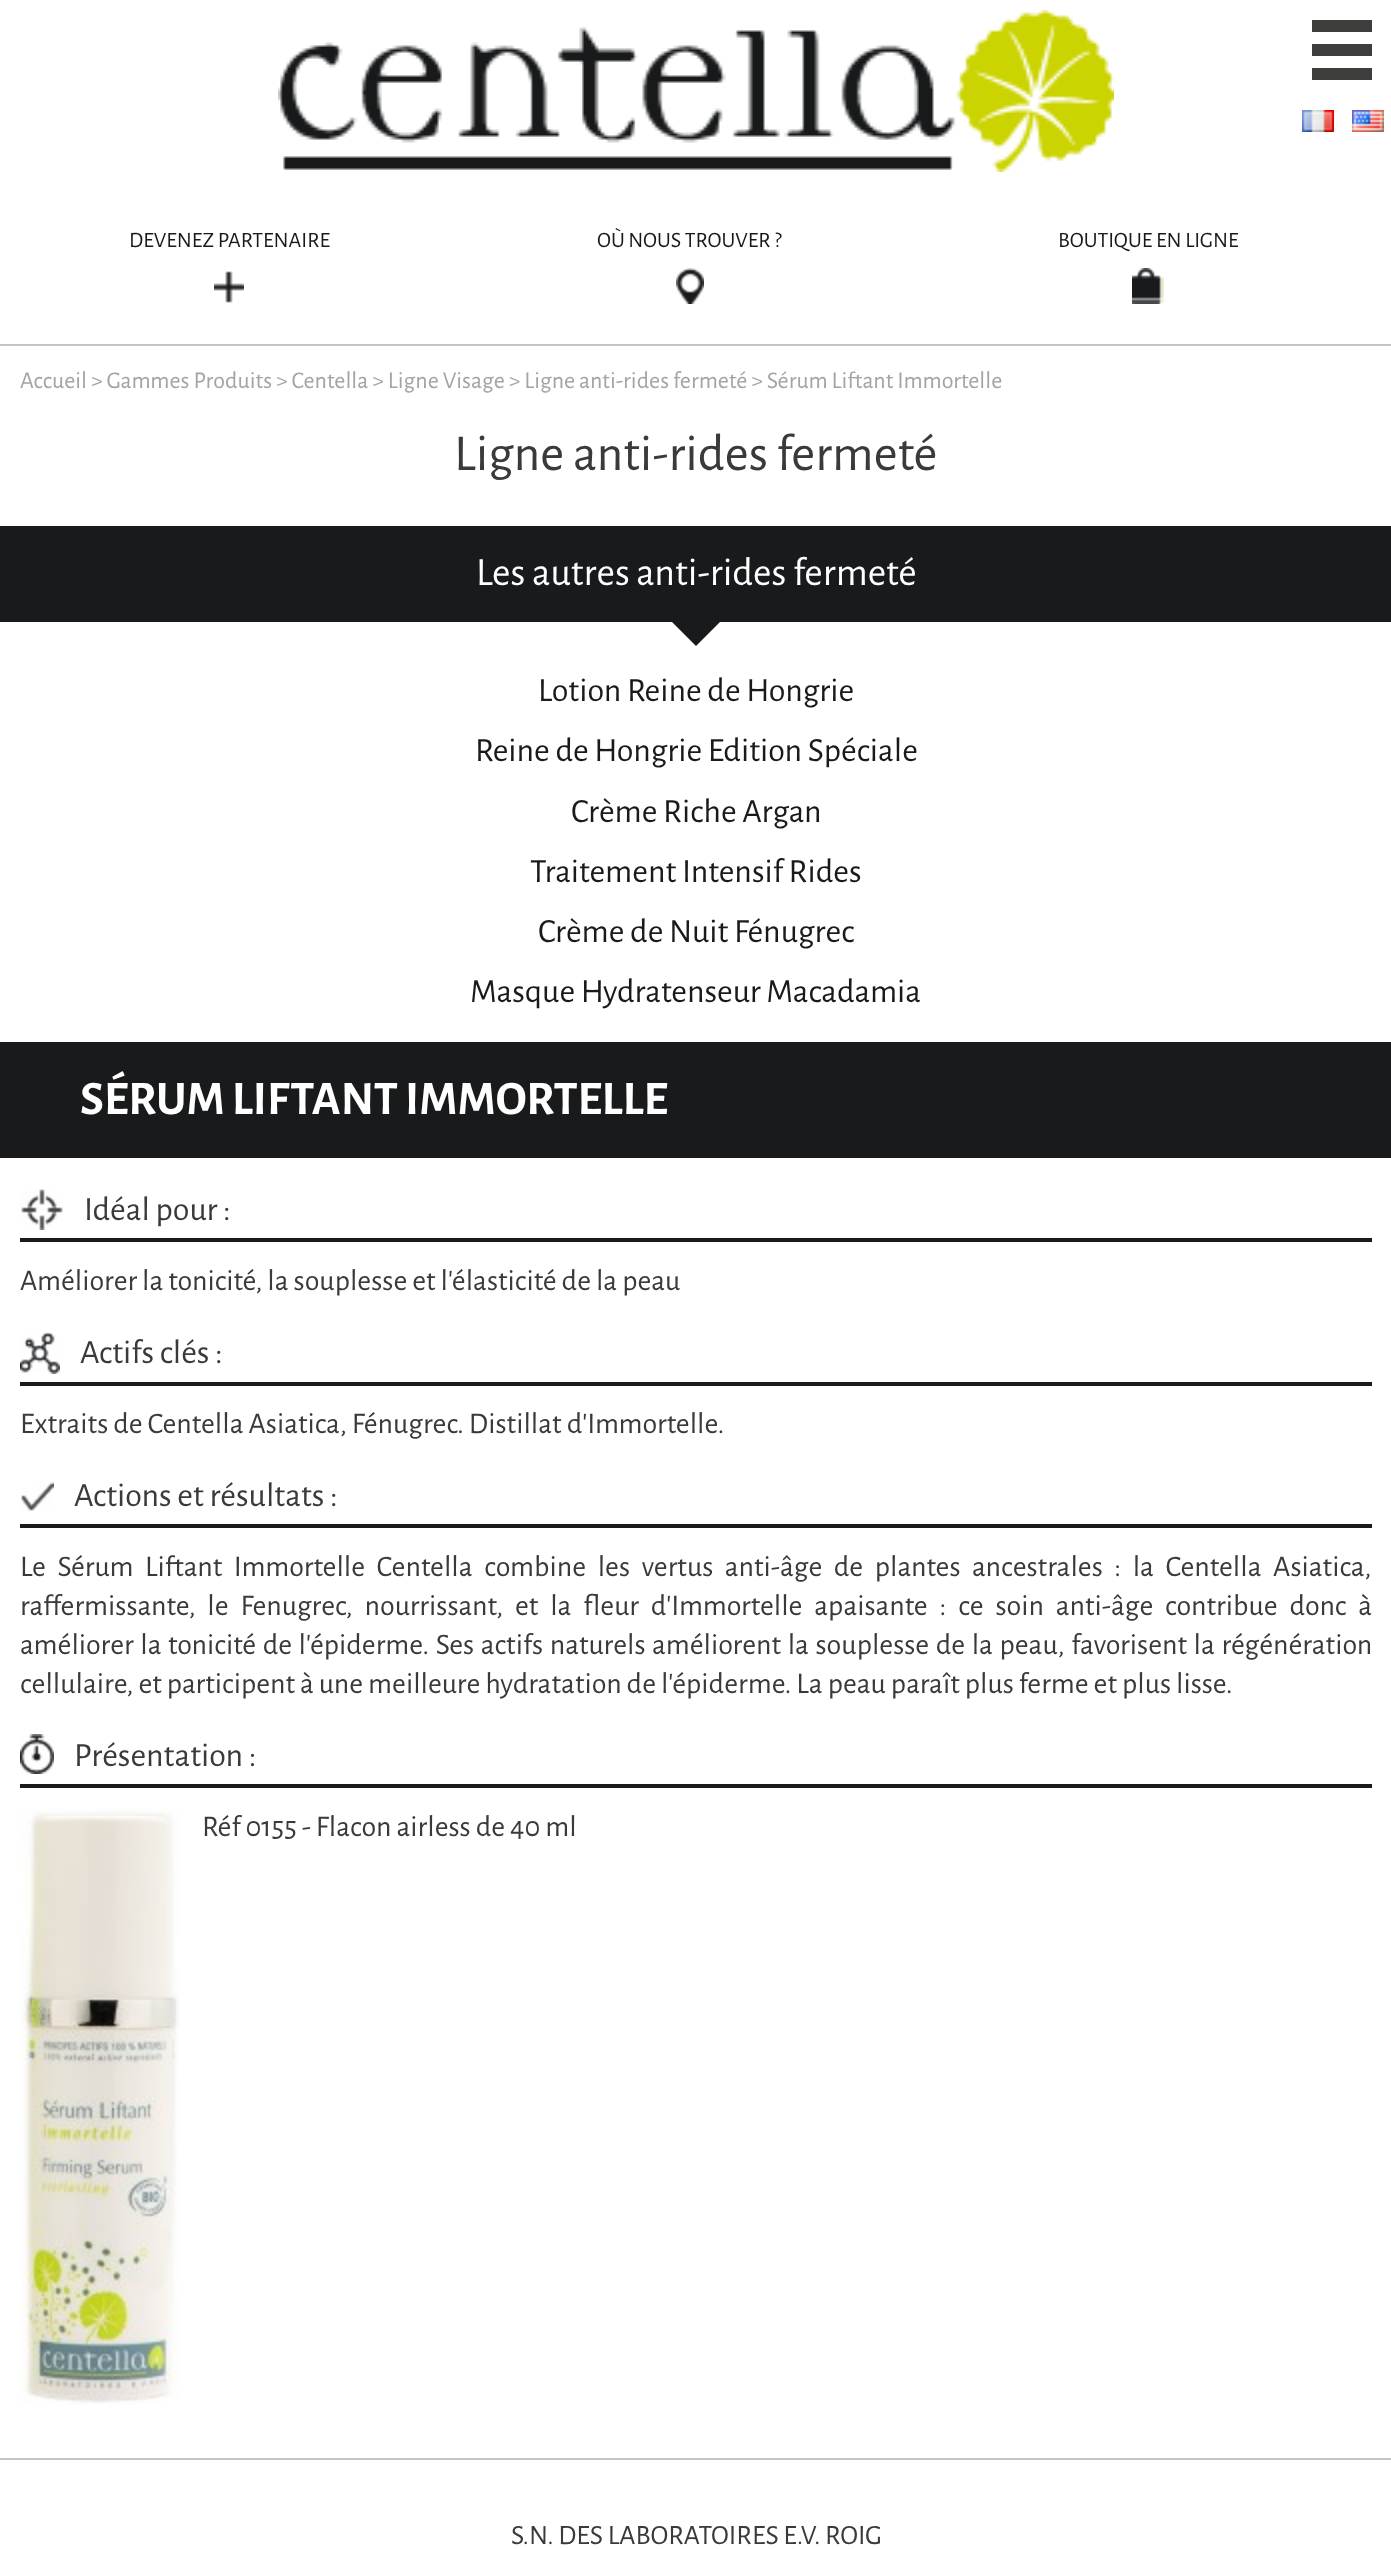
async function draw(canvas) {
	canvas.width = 1391;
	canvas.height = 2549;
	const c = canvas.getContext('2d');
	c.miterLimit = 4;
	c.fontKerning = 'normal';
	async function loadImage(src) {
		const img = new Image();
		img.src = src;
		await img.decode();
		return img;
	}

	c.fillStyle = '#fff';
	c.fillRect(0, 0, 1391, 2549);
	c.fillStyle = '#c4c4c4';
	c.fillRect(0, 344, 1391, 2);
	c.drawImage(await loadImage('img1.png'), 278, 10, 836, 162);
	for (const [x, y, w, h, color] of [
		[1312, 68, 60, 12, '#3e3e3d'],
		[1312, 44, 60, 12, '#3e3e3d'],
		[1312, 20, 60, 12, '#3e3e3d'],
	]) {
		c.fillStyle = color;
		c.fillRect(x, y, w, h);
	}
	c.drawImage(await loadImage('img2.png'), 1302, 110, 32, 22);
	c.drawImage(await loadImage('img3.png'), 1352, 110, 32, 22);
	c.font = '22px Alegreya Sans';
	c.fillStyle = '#181a1c';
	c.fillText('DEVENEZ PARTENAIRE', 129, 247);
	c.drawImage(await loadImage('img4.png'), 214, 271, 30, 32);
	c.fillText('OÙ NOUS TROUVER ?', 597, 247);
	c.drawImage(await loadImage('img5.png'), 676, 268, 28, 36);
	c.fillText('BOUTIQUE EN LIGNE', 1058, 247);
	c.drawImage(await loadImage('img6.png'), 1132, 268, 32, 36);
	c.font = '24px Alegreya Sans';
	c.fillStyle = '#a4a4a4';
	c.fillText('Accueil > Gammes Produits > Centella > Ligne Visage > Ligne anti-rides fermeté > Sérum Liftant Immortelle', 20, 388);
	c.fillStyle = '#c4c4c4';
	c.fillRect(0, 2458, 1391, 2);
	c.font = '52px Alegreya Sans';
	c.fillStyle = '#3a3a3a';
	c.fillText('Ligne anti-rides fermeté', 454, 470);
	c.fillStyle = '#181a1c';
	c.fillRect(0, 526, 1391, 96);
	c.font = '40px Alegreya Sans';
	c.fillStyle = '#fff';
	c.fillText('Les autres anti-rides fermeté', 476, 585);
	c.fillStyle = '#181a1c';
	c.beginPath();
	c.moveTo(656, 606);
	c.lineTo(736, 606);
	c.lineTo(696, 646);
	c.closePath();
	c.fill();
	c.font = '34px Alegreya Sans';
	for (const [text, x, y] of [
		['Lotion Reine de Hongrie', 538, 701],
		['Reine de Hongrie Edition Spéciale', 475, 761],
		['Crème Riche Argan', 571, 822],
		['Traitement Intensif Rides', 530, 882],
		['Crème de Nuit Fénugrec', 538, 942],
		['Masque Hydratenseur Macadamia', 470, 1002],
	]) {
		c.fillText(text, x, y);
	}
	c.fillRect(0, 1042, 1391, 116);
	c.font = 'bold 48px Alegreya Sans';
	c.fillStyle = '#fff';
	c.fillText('SÉRUM LIFTANT IMMORTELLE', 80, 1114);
	c.fillStyle = '#181a1c';
	c.fillRect(20, 1238, 1352, 4);
	c.drawImage(await loadImage('img7.png'), 21, 1189, 42, 41);
	c.font = '34px Alegreya Sans';
	c.fillStyle = '#3a3a3a';
	c.fillText('Idéal pour :', 84, 1220);
	c.font = '30px Alegreya Sans';
	c.fillText('Améliorer la tonicité, la souplesse et l\'élasticité de la peau', 20, 1290);
	c.fillStyle = '#181a1c';
	c.fillRect(20, 1382, 1352, 4);
	c.drawImage(await loadImage('img8.png'), 20, 1332, 40, 42);
	c.font = '34px Alegreya Sans';
	c.fillStyle = '#3a3a3a';
	c.fillText('Actifs clés :', 80, 1363);
	c.font = '30px Alegreya Sans';
	c.fillText('Extraits de Centella Asiatica, Fénugrec. Distillat d\'Immortelle.', 20, 1433);
	c.fillStyle = '#181a1c';
	c.fillRect(20, 1524, 1352, 4);
	c.drawImage(await loadImage('img9.png'), 21, 1481, 33, 30);
	c.font = '34px Alegreya Sans';
	c.fillStyle = '#3a3a3a';
	c.fillText('Actions et résultats :', 74, 1506);
	c.wordSpacing = '6.6px';
	c.font = '30px Alegreya Sans';
	c.fillText('Le Sérum Liftant Immortelle Centella combine les vertus anti-âge de plantes ancestrales : la Centella Asiatica,', 20, 1576);
	c.wordSpacing = '6.9px';
	c.fillText('raffermissante, le Fenugrec, nourrissant, et la fleur d\'Immortelle apaisante : ce soin anti-âge contribue donc à', 20, 1615);
	c.wordSpacing = '1.6px';
	c.fillText('améliorer la tonicité de l\'épiderme. Ses actifs naturels améliorent la souplesse de la peau, favorisent la régénération', 20, 1654);
	c.wordSpacing = '0px';
	c.fillText('cellulaire, et participent à une meilleure hydratation de l\'épiderme. La peau paraît plus ferme et plus lisse.', 20, 1693);
	c.fillStyle = '#181a1c';
	c.fillRect(20, 1784, 1352, 4);
	c.drawImage(await loadImage('img10.png'), 20, 1734, 34, 40);
	c.font = '34px Alegreya Sans';
	c.fillStyle = '#3a3a3a';
	c.fillText('Présentation :', 74, 1766);
	c.drawImage(await loadImage('img11.png'), 20, 1808, 160, 597);
	c.font = '30px Alegreya Sans';
	c.fillText('Réf 0155 - Flacon airless de 40 ml', 202, 1836);
	c.font = '28px Alegreya Sans';
	c.fillText('S.N. DES LABORATOIRES E.V. ROIG', 511, 2544);
}

draw(document.querySelector('canvas'));
